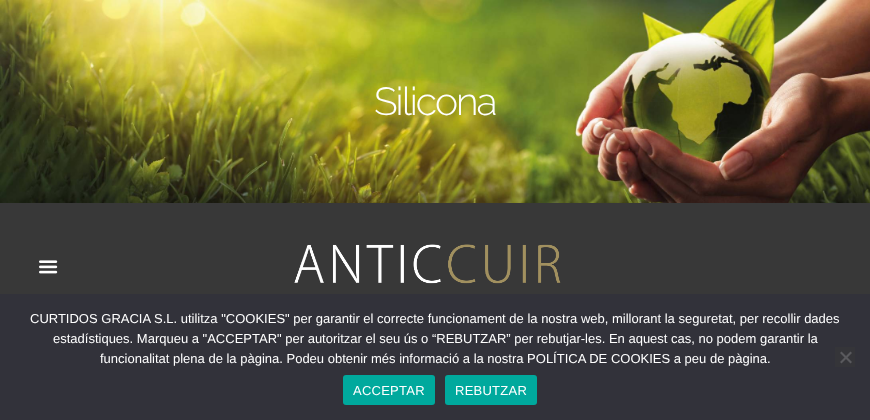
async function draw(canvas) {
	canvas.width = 870;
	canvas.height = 420;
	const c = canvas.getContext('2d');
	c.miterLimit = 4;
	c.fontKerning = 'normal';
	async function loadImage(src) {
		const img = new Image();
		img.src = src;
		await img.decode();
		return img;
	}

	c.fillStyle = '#fff';
	c.fillRect(0, 0, 870, 420);
	c.drawImage(await loadImage('img1.png'), 0, 0, 870, 203);
	c.letterSpacing = '-2px';
	c.font = '300 39px Raleway';
	c.fillText('Silicona', 374, 115);
	c.fillStyle = '#383838';
	c.fillRect(0, 203, 870, 91);
	c.drawImage(await loadImage('img2.png'), 39, 260, 19, 14);
	c.drawImage(await loadImage('img3.png'), 294, 244, 267, 40);
	c.fillStyle = '#32323a';
	c.fillRect(0, 294, 870, 126);
	c.letterSpacing = '0px';
	c.font = '13px Liberation Sans';
	c.fillStyle = '#fff';
	for (const [text, x, y] of [
		['CURTIDOS GRACIA S.L. utilitza "COOKIES" per garantir el correcte funcionament de la nostra web, millorant la seguretat, per recollir dades', 30, 323],
		['estadístiques. Marqueu a "ACCEPTAR" per autoritzar el seu ús o “REBUTZAR” per rebutjar-les. En aquest cas, no podem garantir la', 53, 343],
		['funcionalitat plena de la pàgina. Podeu obtenir més informació a la nostra POLÍTICA DE COOKIES a peu de pàgina.', 100, 363],
	]) {
		c.fillText(text, x, y);
	}
	c.fillStyle = '#353539';
	c.fillRect(835, 347, 20, 20);
	c.fillStyle = '#59595d';
	c.beginPath();
	c.moveTo(850.5, 351.5);
	c.lineTo(852, 353);
	c.lineTo(841.5, 363.5);
	c.lineTo(840, 362);
	c.closePath();
	c.fill();
	c.beginPath();
	c.moveTo(840, 353);
	c.lineTo(841.5, 351.5);
	c.lineTo(852, 362);
	c.lineTo(850.5, 363.5);
	c.closePath();
	c.fill();
	c.fillStyle = '#00a99d';
	c.beginPath();
	c.roundRect(343, 375, 92, 30, 3);
	c.fill();
	c.letterSpacing = '0.25px';
	c.fillStyle = '#fff';
	c.fillText('ACCEPTAR', 353, 395);
	c.fillStyle = '#00a99d';
	c.beginPath();
	c.roundRect(445, 375, 92, 30, 3);
	c.fill();
	c.fillStyle = '#fff';
	c.fillText('REBUTZAR', 455, 395);
}

draw(document.querySelector('canvas'));
